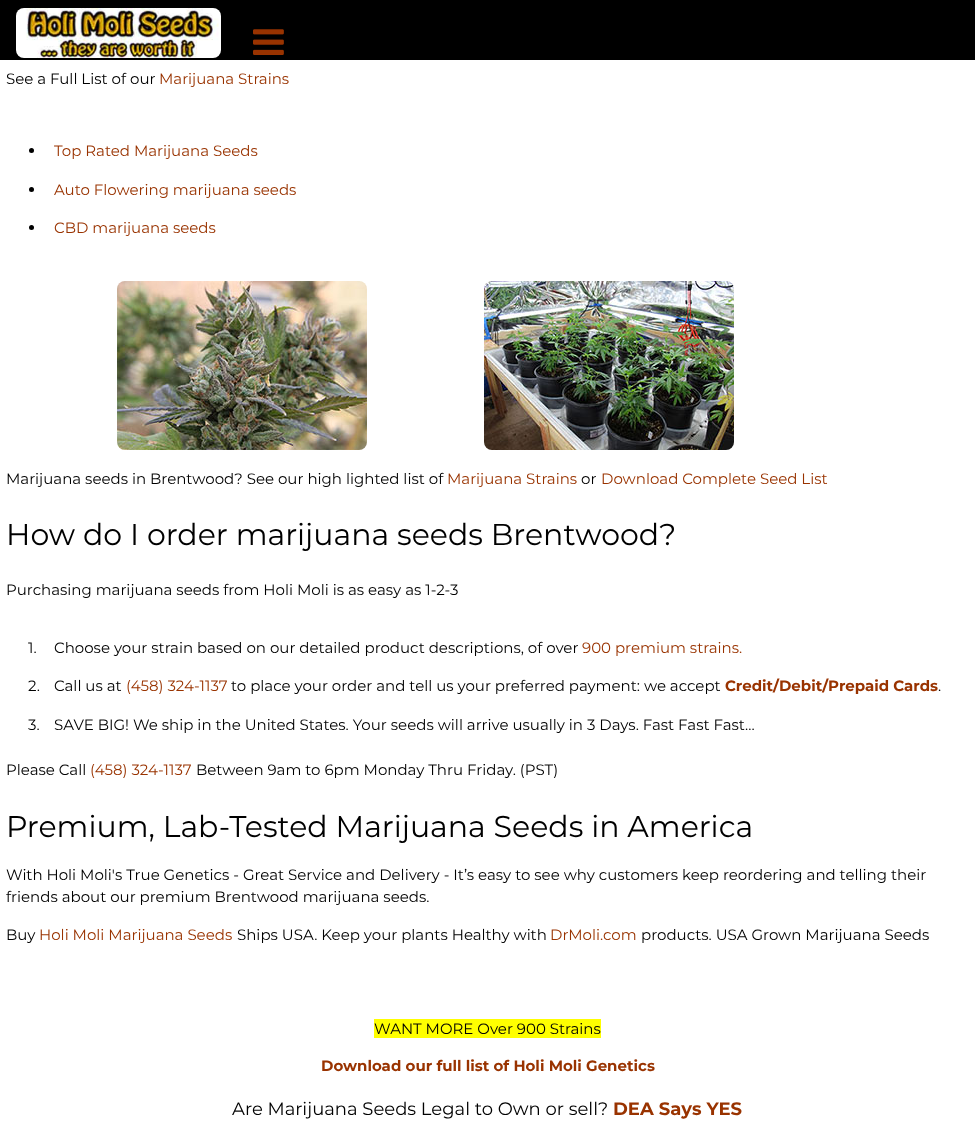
async function draw(canvas) {
	canvas.width = 975;
	canvas.height = 1121;
	const c = canvas.getContext('2d');
	c.miterLimit = 4;
	c.fontKerning = 'normal';
	async function loadImage(src) {
		const img = new Image();
		img.src = src;
		await img.decode();
		return img;
	}

	c.fillStyle = '#fff';
	c.fillRect(0, 0, 975, 1121);
	c.fillStyle = '#000';
	c.fillRect(0, 0, 975, 60);
	c.drawImage(await loadImage('img1.png'), 16, 8, 205, 50);
	c.drawImage(await loadImage('img2.png'), 253, 29, 31, 26);
	c.font = '15px Montserrat';
	c.fillText('See a Full List of our', 6, 84);
	c.fillStyle = '#930';
	c.fillText('Marijuana Strains', 159, 84);
	c.fillStyle = '#000';
	c.beginPath();
	c.arc(31.5, 150.5, 2.5, 0, 2 * Math.PI);
	c.fill();
	c.fillStyle = '#930';
	c.fillText('Top Rated Marijuana Seeds', 54, 156);
	c.fillStyle = '#000';
	c.beginPath();
	c.arc(31.5, 189.5, 2.5, 0, 2 * Math.PI);
	c.fill();
	c.fillStyle = '#930';
	c.fillText('Auto Flowering marijuana seeds', 54, 195);
	c.fillStyle = '#000';
	c.beginPath();
	c.arc(31.5, 227.5, 2.5, 0, 2 * Math.PI);
	c.fill();
	c.fillStyle = '#930';
	c.fillText('CBD marijuana seeds', 54, 233);
	c.drawImage(await loadImage('img3.png'), 117, 281, 250, 169);
	c.drawImage(await loadImage('img4.png'), 484, 281, 250, 169);
	c.fillStyle = '#000';
	c.fillText('Marijuana seeds in Brentwood? See our high lighted list of', 6, 484);
	c.fillStyle = '#930';
	c.fillText('Marijuana Strains', 447, 484);
	c.fillStyle = '#000';
	c.fillText('or', 581, 484);
	c.fillStyle = '#930';
	c.fillText('Download Complete Seed List', 601, 484);
	c.font = '30px Montserrat';
	c.fillStyle = '#000';
	c.fillText('How do I order marijuana seeds Brentwood?', 6, 545);
	c.font = '15px Montserrat';
	for (const [text, x, y] of [
		['Purchasing marijuana seeds from Holi Moli is as easy as 1-2-3', 6, 595],
		['1.', 28, 653],
		['Choose your strain based on our detailed product descriptions, of over', 54, 653],
	]) {
		c.fillText(text, x, y);
	}
	c.fillStyle = '#930';
	c.fillText('900 premium strains.', 582, 653);
	c.fillStyle = '#000';
	c.fillText('2.', 28, 691);
	c.fillText('Call us at', 54, 691);
	c.fillStyle = '#930';
	c.fillText('(458) 324-1137', 126, 691);
	c.fillStyle = '#000';
	c.fillText('to place your order and tell us your preferred payment: we accept', 231, 691);
	c.font = 'bold 15px Montserrat';
	c.fillStyle = '#930';
	c.fillText('Credit/Debit/Prepaid Cards', 725, 691);
	c.font = '15px Montserrat';
	c.fillStyle = '#000';
	for (const [text, x, y] of [
		['.', 938, 691],
		['3.', 28, 730],
		['SAVE BIG! We ship in the United States. Your seeds will arrive usually in 3 Days. Fast Fast Fast...', 54, 730],
		['Please Call', 6, 775],
	]) {
		c.fillText(text, x, y);
	}
	c.fillStyle = '#930';
	c.fillText('(458) 324-1137', 90, 775);
	c.fillStyle = '#000';
	c.fillText('Between 9am to 6pm Monday Thru Friday. (PST)', 196, 775);
	c.font = '30px Montserrat';
	c.fillText('Premium, Lab-Tested Marijuana Seeds in America', 6, 837);
	c.font = '15px Montserrat';
	for (const [text, x, y] of [
		['With Holi Moli\'s True Genetics - Great Service and Delivery - It’s easy to see why customers keep reordering and telling their', 6, 880],
		['friends about our premium Brentwood marijuana seeds.', 6, 902],
		['Buy', 6, 940],
	]) {
		c.fillText(text, x, y);
	}
	c.fillStyle = '#930';
	c.fillText('Holi Moli Marijuana Seeds', 39, 940);
	c.fillStyle = '#000';
	c.fillText('Ships USA. Keep your plants Healthy with', 237, 940);
	c.fillStyle = '#930';
	c.fillText('DrMoli.com', 550, 940);
	c.fillStyle = '#000';
	c.fillText('products. USA Grown Marijuana Seeds', 641, 940);
	c.fillStyle = '#ff0';
	c.fillRect(374, 1019, 227, 19);
	c.fillStyle = '#000';
	c.fillText('WANT MORE Over 900 Strains', 374, 1034);
	c.font = 'bold 15px Montserrat';
	c.fillStyle = '#930';
	c.fillText('Download our full list of Holi Moli Genetics', 321, 1071);
	c.font = '18px Montserrat';
	c.fillStyle = '#000';
	c.fillText('Are Marijuana Seeds Legal to Own or sell?', 232, 1115);
	c.font = 'bold 18px Montserrat';
	c.fillStyle = '#930';
	c.fillText('DEA Says YES', 613, 1115);
}

draw(document.querySelector('canvas'));
